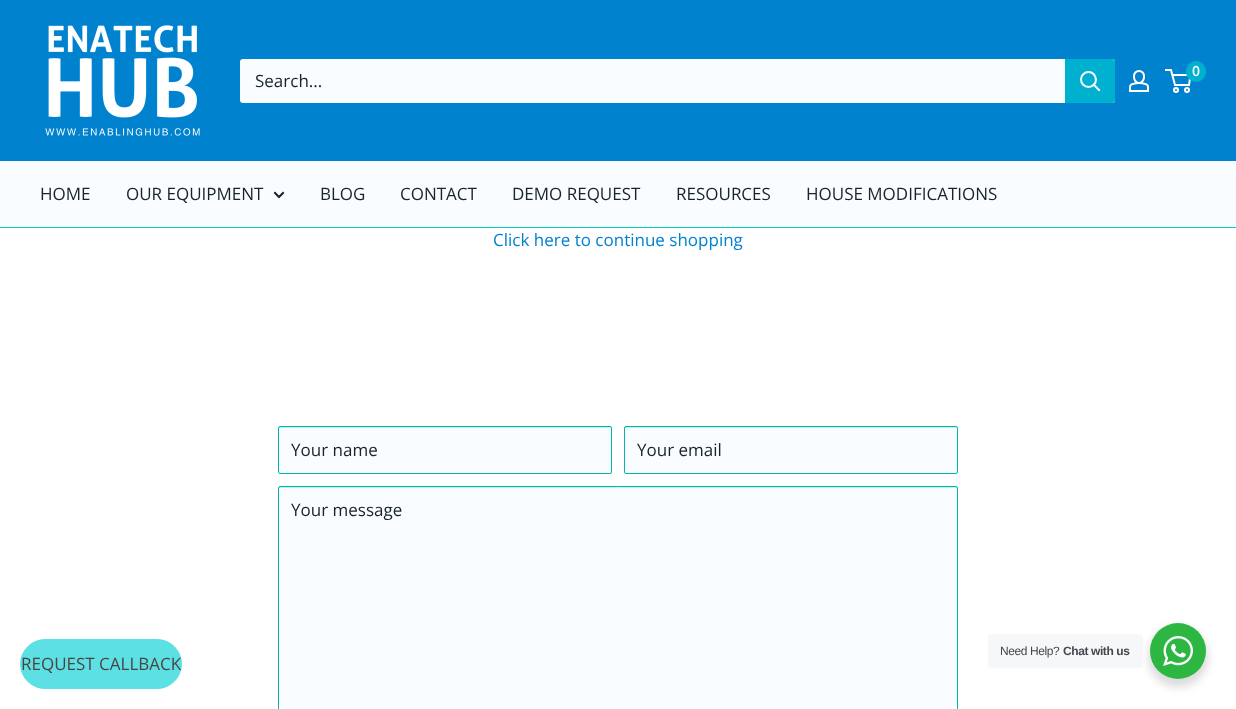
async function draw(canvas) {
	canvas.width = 1236;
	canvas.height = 709;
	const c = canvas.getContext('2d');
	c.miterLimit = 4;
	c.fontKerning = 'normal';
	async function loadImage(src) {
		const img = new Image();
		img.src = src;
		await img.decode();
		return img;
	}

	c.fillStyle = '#fff';
	c.fillRect(0, 0, 1236, 709);
	c.fillStyle = '#0082cf';
	c.fillRect(0, 0, 1236, 161);
	c.drawImage(await loadImage('img1.png'), 45, 25, 155, 111);
	c.drawImage(await loadImage('img2.png'), 1129, 70, 20, 22);
	c.beginPath();
	c.arc(1176, 90, 2, 0, 2 * Math.PI);
	c.strokeStyle = '#fff';
	c.lineWidth = 2;
	c.stroke();
	c.beginPath();
	c.arc(1187, 90, 2, 0, 2 * Math.PI);
	c.stroke();
	c.beginPath();
	c.moveTo(1172.5, 75);
	c.lineTo(1190.5, 75);
	c.lineTo(1189, 85);
	c.lineTo(1175, 85);
	c.lineTo(1171, 70);
	c.lineTo(1165, 70);
	c.stroke();
	c.fillStyle = '#00b0cf';
	c.beginPath();
	c.roundRect(1186, 61, 20, 21, 10);
	c.fill();
	c.font = '600 14px Open Sans';
	c.fillStyle = '#f9fdff';
	c.fillText('0', 1192, 76);
	c.beginPath();
	c.roundRect(240, 59, 875, 44, 3);
	c.fill();
	c.font = '17px Open Sans';
	c.fillStyle = '#18242b';
	c.fillText('Search...', 255, 87);
	c.fillStyle = '#00b0cf';
	c.beginPath();
	c.roundRect(1065, 59, 50, 44, [0, 3, 3, 0]);
	c.fill();
	c.beginPath();
	c.moveTo(1099, 90);
	c.lineTo(1094, 85);
	c.strokeStyle = '#f9fdff';
	c.lineCap = 'square';
	c.stroke();
	c.beginPath();
	c.arc(1088.5, 79.5, 7.5, 0, 2 * Math.PI);
	c.stroke();
	c.fillStyle = '#f9fdff';
	c.fillRect(0, 161, 1236, 66);
	c.fillStyle = '#00cfc6';
	c.fillRect(0, 227, 1236, 1);
	c.fillStyle = '#18242b';
	c.fillText('HOME', 40, 200);
	c.fillText('OUR EQUIPMENT', 126, 200);
	c.beginPath();
	c.moveTo(283, 193);
	c.lineTo(279, 197);
	c.lineTo(275, 193);
	c.strokeStyle = '#18242b';
	c.stroke();
	for (const [text, x, y] of [
		['BLOG', 320, 200],
		['CONTACT', 400, 200],
		['DEMO REQUEST', 512, 200],
		['RESOURCES', 676, 200],
		['HOUSE MODIFICATIONS', 806, 200],
	]) {
		c.fillText(text, x, y);
	}
	c.fillStyle = '#0082cf';
	c.fillText('Click here to continue shopping', 493, 246);
	c.fillStyle = '#f9fdff';
	c.beginPath();
	c.roundRect(278, 426, 334, 48, 2);
	c.fill();
	c.fillStyle = '#bbf2f1';
	c.beginPath();
	c.moveTo(280, 428);
	c.lineTo(610, 428);
	c.bezierCurveTo(611, 428, 611, 428, 611, 429);
	c.lineTo(611, 427);
	c.lineTo(445, 427);
	c.lineTo(280, 427);
	c.lineTo(279, 428);
	c.lineTo(279, 429);
	c.bezierCurveTo(279, 428, 279, 428, 280, 428);
	c.closePath();
	c.fill();
	c.beginPath();
	c.roundRect(278.5, 426.5, 333, 47, 1.5);
	c.strokeStyle = '#00b5ae';
	c.lineWidth = 1;
	c.stroke();
	c.fillStyle = '#18242b';
	c.fillText('Your name', 291, 456);
	c.fillStyle = '#f9fdff';
	c.beginPath();
	c.roundRect(624, 426, 334, 48, 2);
	c.fill();
	c.fillStyle = '#bbf2f1';
	c.beginPath();
	c.moveTo(626, 428);
	c.lineTo(956, 428);
	c.bezierCurveTo(957, 428, 957, 428, 957, 429);
	c.lineTo(957, 428);
	c.lineTo(956, 427);
	c.lineTo(625, 427);
	c.lineTo(625, 429);
	c.bezierCurveTo(625, 428, 625, 428, 626, 428);
	c.closePath();
	c.fill();
	c.beginPath();
	c.roundRect(624.5, 426.5, 333, 47, 1.5);
	c.stroke();
	c.fillStyle = '#18242b';
	c.fillText('Your email', 637, 456);
	c.fillStyle = '#f9fdff';
	c.beginPath();
	c.roundRect(278, 486, 680, 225, 2);
	c.fill();
	c.fillStyle = '#bbf2f1';
	c.beginPath();
	c.moveTo(280, 488);
	c.lineTo(956, 488);
	c.bezierCurveTo(957, 488, 957, 488, 957, 489);
	c.bezierCurveTo(957, 488, 957, 487, 956, 487);
	c.lineTo(280, 487);
	c.bezierCurveTo(279, 487, 279, 488, 279, 489);
	c.bezierCurveTo(279, 488, 279, 488, 280, 488);
	c.closePath();
	c.fill();
	c.beginPath();
	c.roundRect(278.5, 486.5, 679, 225, 1.5);
	c.stroke();
	c.fillStyle = '#18242b';
	c.fillText('Your message', 291, 516);
	c.fillStyle = '#00000024';
	c.filter = 'blur(4px)';
	c.beginPath();
	c.roundRect(1148, 627, 60, 60, 30);
	c.fill();
	c.filter = 'none';
	c.fillStyle = '#f5f7f9';
	c.beginPath();
	c.roundRect(988, 634, 155, 34, 4);
	c.fill();
	c.letterSpacing = '-0.4px';
	c.font = '12px Liberation Sans';
	c.fillStyle = '#43474e';
	c.fillText('Need Help?', 1000, 655);
	c.font = 'bold 12px Liberation Sans';
	c.fillText('Chat with us', 1063, 655);
	c.fillStyle = '#2db742';
	c.beginPath();
	c.arc(1178, 651, 28, 0, 2 * Math.PI);
	c.fill();
	c.drawImage(await loadImage('img3.png'), 1163, 636, 30, 30);
	c.fillStyle = '#5ce0e4';
	c.beginPath();
	c.roundRect(20.5, 639.5, 161, 49, 24.5);
	c.fill();
	c.strokeStyle = '#5ce0e4';
	c.stroke();
	c.letterSpacing = '0px';
	c.font = '17px Open Sans';
	c.fillStyle = '#4a4545';
	c.fillText('REQUEST CALLBACK', 21, 670);
}

draw(document.querySelector('canvas'));
